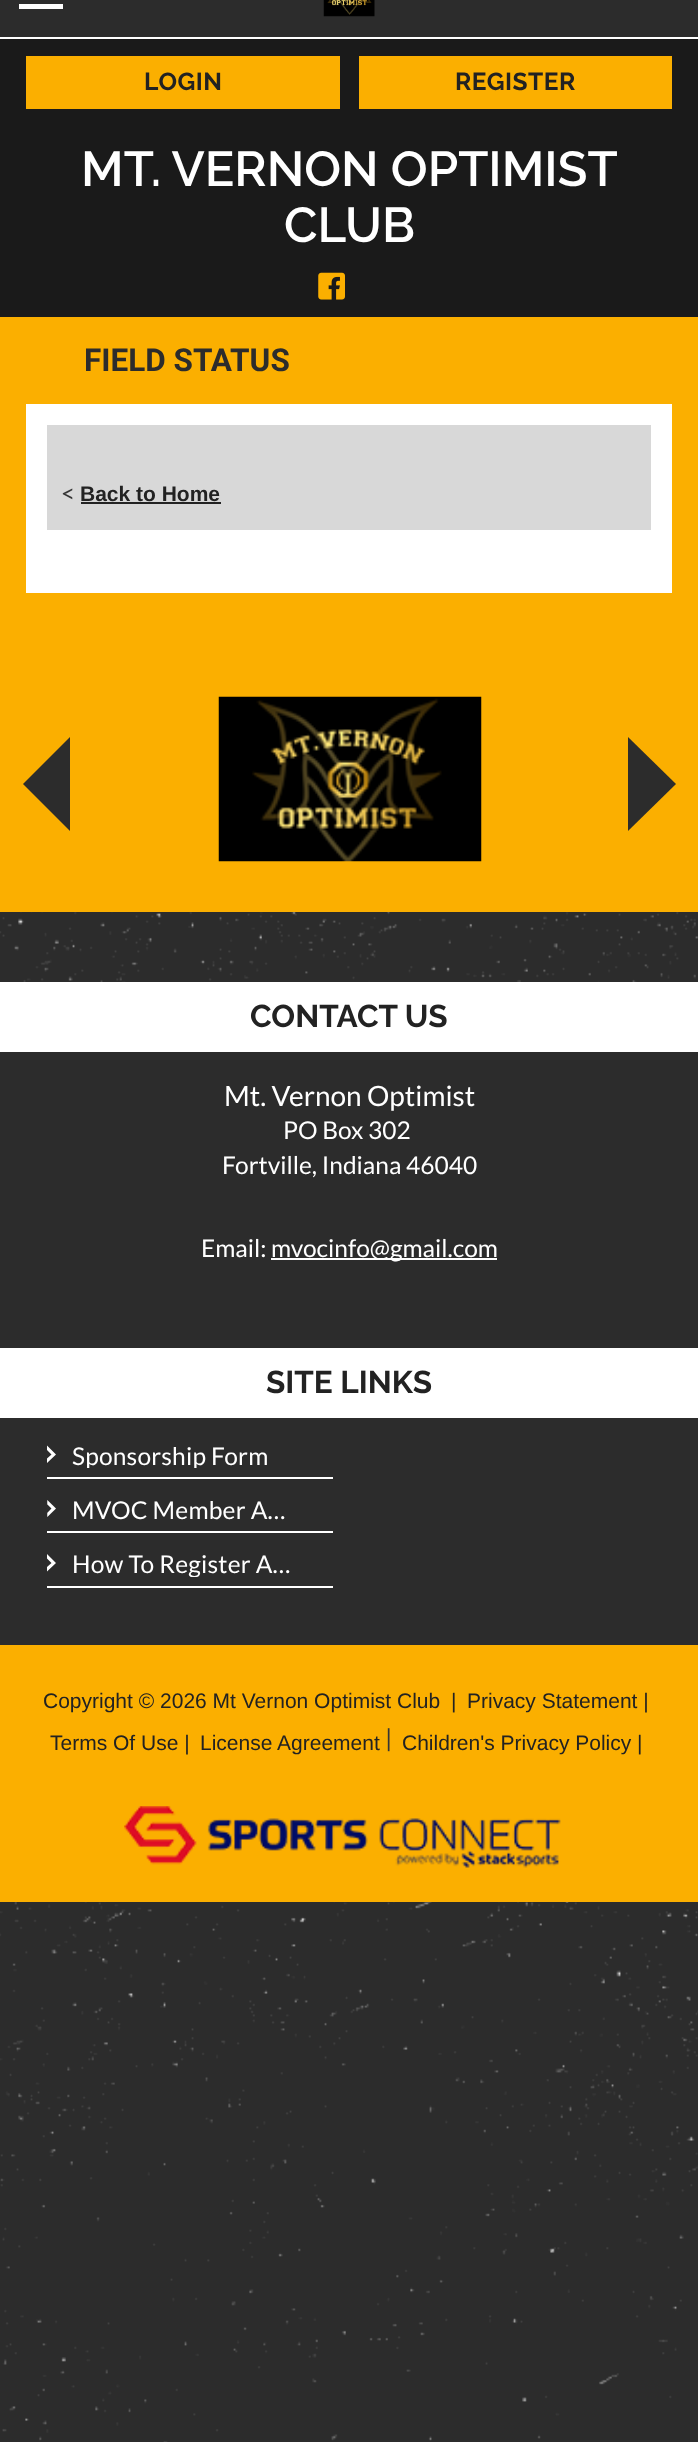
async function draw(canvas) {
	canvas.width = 698;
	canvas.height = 2442;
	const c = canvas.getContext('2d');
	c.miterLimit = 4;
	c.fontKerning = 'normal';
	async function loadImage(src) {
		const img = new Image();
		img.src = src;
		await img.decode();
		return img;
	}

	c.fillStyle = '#2c2c2c';
	c.fillRect(0, 0, 698, 2442);
	c.fillStyle = '#fff';
	c.fillRect(0, 37, 698, 2);
	c.beginPath();
	c.moveTo(19, -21);
	c.lineTo(63, -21);
	c.lineTo(63, -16);
	c.lineTo(19, -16);
	c.closePath();
	c.moveTo(19, -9);
	c.lineTo(63, -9);
	c.lineTo(63, -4);
	c.lineTo(19, -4);
	c.closePath();
	c.moveTo(19, 4);
	c.lineTo(63, 4);
	c.lineTo(63, 9);
	c.lineTo(19, 9);
	c.closePath();
	c.fill();
	c.drawImage(await loadImage('img1.png'), 323, 0, 52, 17);
	c.drawImage(await loadImage('img2.png'), 0, 912, 698, 1530);
	c.fillStyle = '#1a1a1a';
	c.fillRect(0, 39, 698, 278);
	c.fillStyle = '#fbaf00';
	c.fillRect(26, 56, 314, 53);
	c.letterSpacing = '0.5px';
	c.font = 'bold 24.5px Raleway';
	c.fillStyle = '#222';
	c.fillText('LOGIN', 144, 90);
	c.fillStyle = '#fbaf00';
	c.fillRect(359, 56, 313, 53);
	c.fillStyle = '#222';
	c.fillText('REGISTER', 455, 90);
	c.letterSpacing = '0px';
	c.font = '600 49px Raleway';
	c.fillStyle = '#fff';
	c.fillText('MT. VERNON OPTIMIST', 81, 186);
	c.fillText('CLUB', 284, 242);
	c.drawImage(await loadImage('img3.png'), 318, 272, 27, 28);
	c.fillStyle = '#fbaf00';
	c.fillRect(0, 317, 698, 595);
	c.font = 'bold 31.5px Roboto';
	c.fillStyle = '#2c2c2c';
	c.fillText('FIELD STATUS', 84, 371);
	c.fillStyle = '#fff';
	c.fillRect(26, 404, 646, 189);
	c.fillStyle = '#d8d8d8';
	c.fillRect(47, 425, 604, 105);
	c.font = '24.5px Lato';
	c.fillStyle = '#363636';
	c.fillText('<', 61, 502);
	c.font = 'bold 21px Liberation Sans';
	c.fillStyle = '#222';
	c.fillText('Back to Home', 80, 501);
	c.fillRect(81, 502, 140, 2);
	c.fillStyle = '#2c2c2c';
	c.beginPath();
	c.moveTo(70, 737);
	c.lineTo(70, 831);
	c.lineTo(23, 784);
	c.closePath();
	c.fill();
	c.drawImage(await loadImage('img4.png'), 218, 696, 264, 166);
	c.beginPath();
	c.moveTo(628, 831);
	c.lineTo(628, 737);
	c.lineTo(676, 784);
	c.closePath();
	c.fill();
	c.fillRect(0, 1052, 698, 593);
	c.fillStyle = '#fff';
	c.fillRect(0, 982, 698, 70);
	c.font = 'bold 31.5px Raleway';
	c.fillStyle = '#222';
	c.fillText('CONTACT US', 250, 1027);
	c.font = '28px Lato';
	c.fillStyle = '#fff';
	c.fillText('Mt. Vernon Optimist', 224, 1106);
	c.font = '24.5px Lato';
	for (const [text, x, y] of [
		['PO Box 302', 283, 1139],
		['Fortville, Indiana 46040', 222, 1174],
		['Email:', 201, 1257],
	]) {
		c.fillText(text, x, y);
	}
	c.fillRect(271, 1258, 226, 2);
	c.fillText('mvocinfo@gmail.com', 271, 1257);
	c.fillRect(0, 1348, 698, 70);
	c.font = 'bold 31.5px Raleway';
	c.fillStyle = '#222';
	c.fillText('SITE LINKS', 266, 1393);
	c.fillStyle = '#fff';
	c.fillRect(47, 1477, 286, 2);
	c.beginPath();
	c.moveTo(47, 1445.5);
	c.lineTo(56, 1454.5);
	c.lineTo(47, 1463);
	c.lineTo(47, 1458.5);
	c.lineTo(51.5, 1454.5);
	c.lineTo(47, 1450);
	c.closePath();
	c.fill();
	c.save();
	c.beginPath();
	c.rect(47, 1444, 244, 24);
	c.clip();
	c.letterSpacing = '0.2px';
	c.font = '24.5px Lato';
	c.fillText('Sponsorship Form', 72, 1465);
	c.restore();
	c.fillRect(47, 1531, 286, 2);
	c.drawImage(await loadImage('img5.png'), 47, 1500, 9, 17);
	c.letterSpacing = '0.2px';
	c.font = '24.5px Lato';
	c.fillText('MVOC Member A…', 72, 1519);
	c.fillRect(47, 1586, 286, 2);
	c.beginPath();
	c.moveTo(47, 1554);
	c.lineTo(56, 1563);
	c.lineTo(47, 1571.5);
	c.lineTo(47, 1567);
	c.lineTo(51.5, 1563);
	c.lineTo(47, 1558.5);
	c.closePath();
	c.fill();
	c.save();
	c.beginPath();
	c.rect(47, 1552, 244, 25);
	c.clip();
	c.fillText('How To Register A…', 72, 1573);
	c.restore();
	c.fillStyle = '#fbaf00';
	c.fillRect(0, 1645, 698, 257);
	c.letterSpacing = '0px';
	c.font = '21px Liberation Sans';
	c.fillStyle = '#222';
	for (const [text, x, y] of [
		['Copyright © 2026 Mt Vernon Optimist Club', 43, 1708],
		['|', 451, 1708],
		['Privacy Statement |', 467, 1708],
		['Terms Of Use |', 50, 1750],
		['License Agreement', 200, 1750],
	]) {
		c.fillText(text, x, y);
	}
	c.font = '24.5px Lato';
	c.fillStyle = '#363636';
	c.fillText('|', 385, 1747);
	c.font = '21px Liberation Sans';
	c.fillStyle = '#222';
	c.fillText('Children\'s Privacy Policy |', 402, 1750);
	c.drawImage(await loadImage('img6.png'), 124, 1806, 437, 62);
}

draw(document.querySelector('canvas'));
